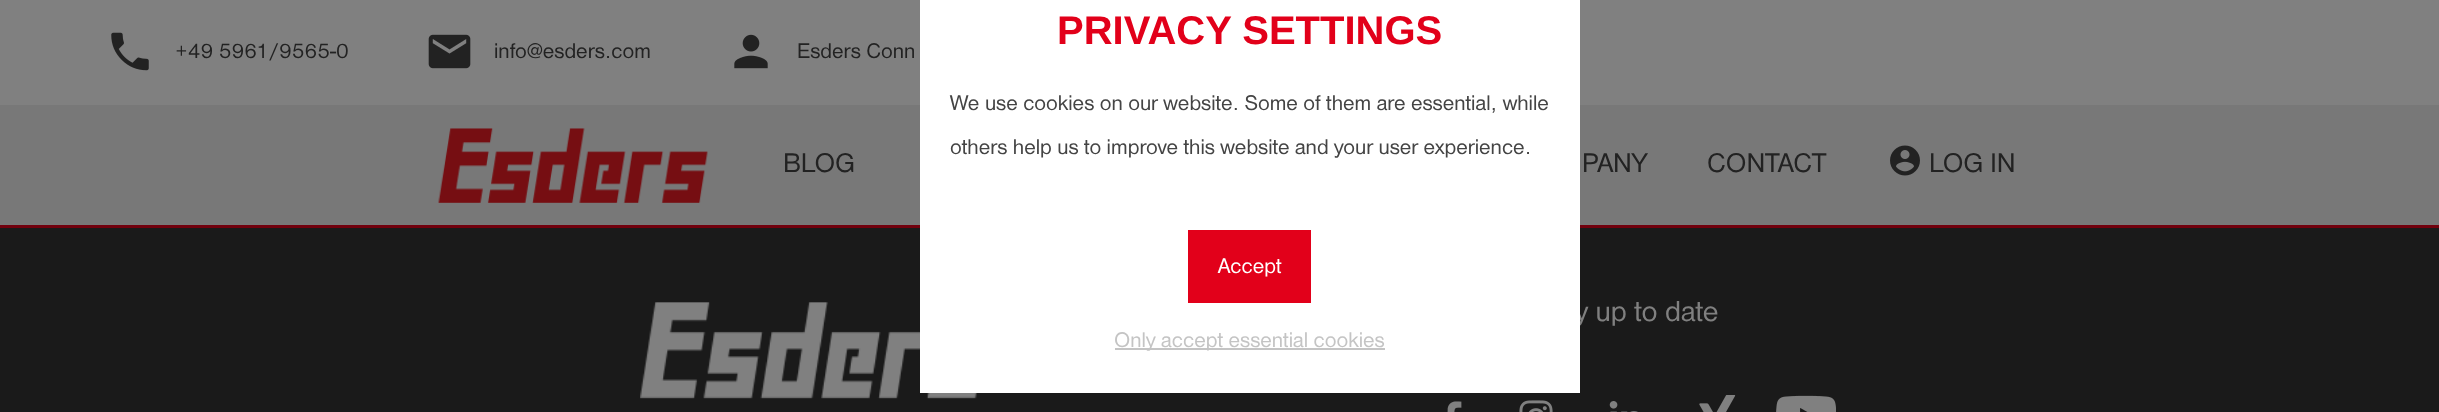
async function draw(canvas) {
	canvas.width = 2439;
	canvas.height = 412;
	const c = canvas.getContext('2d');
	c.miterLimit = 4;
	c.fontKerning = 'normal';
	async function loadImage(src) {
		const img = new Image();
		img.src = src;
		await img.decode();
		return img;
	}

	c.fillStyle = '#808080';
	c.fillRect(0, 0, 2439, 412);
	for (const [x, y, w, h, color] of [
		[0, 105, 2439, 120, '#787878'],
		[0, 225, 2439, 3, '#71000d'],
		[0, 228, 2439, 184, '#1a1a1a'],
	]) {
		c.fillStyle = color;
		c.fillRect(x, y, w, h);
	}
	c.drawImage(await loadImage('img6.png'), 640, 302, 337, 97);
	c.font = '30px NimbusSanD';
	c.fillStyle = '#808080';
	c.fillText('y up to date', 1575, 321);
	c.fillStyle = '#fff';
	c.fillRect(920, 0, 660, 393);
	c.font = 'bold 40px Liberation Sans';
	c.fillStyle = '#e2001a';
	c.fillText('PRIVACY SETTINGS', 1057, 44);
	c.font = '22px NimbusSanD';
	c.fillStyle = '#444';
	c.fillText('We use cookies on our website. Some of them are essential, while', 950, 110);
	c.fillText('others help us to improve this website and your user experience.', 950, 154);
	c.fillStyle = '#e2001a';
	c.fillRect(1188, 230, 123, 73);
	c.fillStyle = '#fff';
	c.fillText('Accept', 1218, 273);
	c.fillStyle = '#c4c4c4';
	c.fillRect(1115, 348, 270, 2);
	c.fillText('Only accept essential cookies', 1114, 347);
	c.drawImage(await loadImage('img1.png'), 111, 32, 38, 39);
	c.fillStyle = '#222';
	c.fillText('+49 5961/9565-0', 175, 58);
	c.drawImage(await loadImage('img2.png'), 428, 34, 43, 35);
	c.fillText('info@esders.com', 494, 58);
	c.drawImage(await loadImage('img3.png'), 734, 34, 34, 35);
	c.fillText('Esders Conn', 797, 58);
	c.drawImage(await loadImage('img4.png'), 438, 128, 270, 75);
	c.font = '28px NimbusSanD';
	for (const [text, x, y] of [
		['BLOG', 783, 172],
		['PANY', 1582, 172],
		['CONTACT', 1707, 172],
	]) {
		c.fillText(text, x, y);
	}
	c.drawImage(await loadImage('img5.png'), 1890, 145, 30, 31);
	c.fillText('LOG IN', 1929, 172);
	c.drawImage(await loadImage('img7.png'), 1447, 401, 15, 11);
	c.drawImage(await loadImage('img8.png'), 1519, 400, 34, 12);
	c.drawImage(await loadImage('img9.png'), 1609, 401, 29, 11);
	c.drawImage(await loadImage('img10.png'), 1699, 395, 37, 17);
	c.drawImage(await loadImage('img11.png'), 1776, 395, 60, 17);
}

draw(document.querySelector('canvas'));
